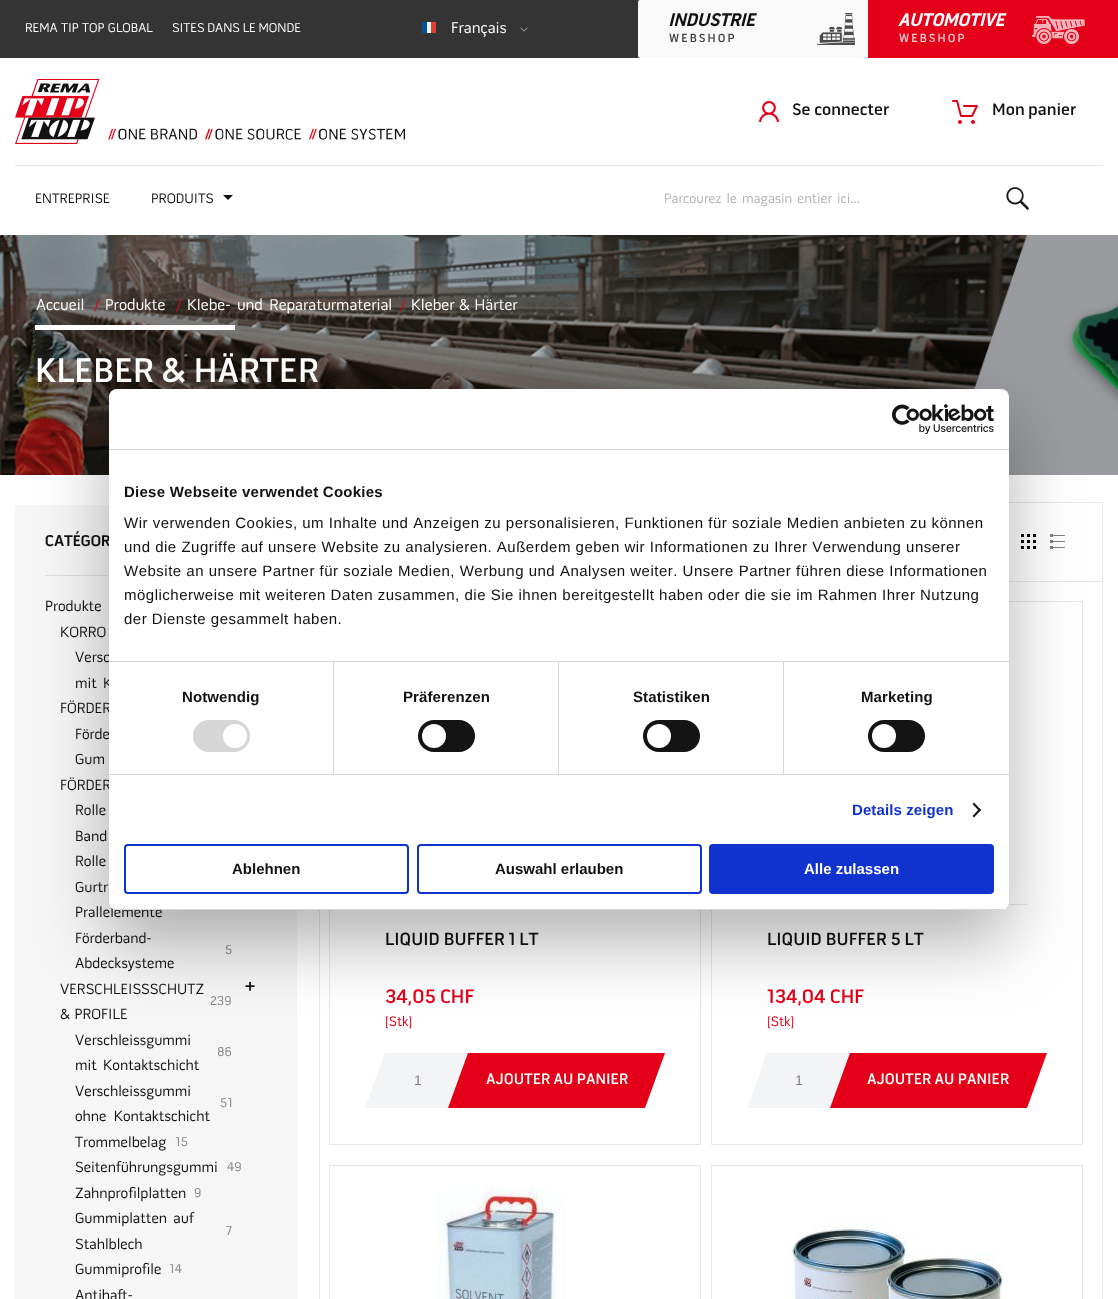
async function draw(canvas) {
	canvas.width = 1118;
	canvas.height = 1299;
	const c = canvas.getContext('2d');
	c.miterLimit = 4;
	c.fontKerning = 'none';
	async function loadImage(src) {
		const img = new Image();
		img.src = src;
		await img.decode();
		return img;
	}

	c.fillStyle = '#fff';
	c.fillRect(0, 0, 1118, 1299);
	c.fillStyle = '#343434';
	c.fillRect(0, 0, 640, 58);
	c.wordSpacing = '0.5px';
	c.font = '13px "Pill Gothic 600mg"';
	c.fillStyle = '#fff';
	c.fillText('REMA TIP TOP GLOBAL', 25, 32);
	c.wordSpacing = '0px';
	c.fillText('SITES DANS LE MONDE', 172, 32);
	c.drawImage(await loadImage('img1.png'), 422, 22, 14, 11);
	c.font = '16px "Pill Gothic 600mg"';
	c.fillText('Français', 451, 33);
	c.drawImage(await loadImage('img2.png'), 520, 27, 8, 5);
	c.fillStyle = '#f9f9f9';
	c.beginPath();
	c.roundRect(638, 0, 250, 58, 2);
	c.fill();
	c.font = 'italic bold 18px "Pill Gothic 600mg"';
	c.fillStyle = '#111';
	c.fillText('INDUSTRIE', 668, 26);
	c.letterSpacing = '2px';
	c.font = '500 12px "Pill Gothic 600mg"';
	c.fillStyle = '#3f3f3f';
	c.fillText('WEBSHOP', 669, 42);
	c.drawImage(await loadImage('img3.png'), 817, 13, 38, 32);
	c.fillStyle = '#e30018';
	c.fillRect(868, 0, 250, 58);
	c.letterSpacing = '0px';
	c.font = 'italic bold 18px "Pill Gothic 600mg"';
	c.fillStyle = '#fff';
	c.fillText('AUTOMOTIVE', 898, 26);
	c.letterSpacing = '2px';
	c.font = '500 12px "Pill Gothic 600mg"';
	c.fillStyle = '#f9ccd1';
	c.fillText('WEBSHOP', 899, 42);
	c.drawImage(await loadImage('img4.png'), 1032, 16, 53, 28);
	c.drawImage(await loadImage('img5.png'), 15, 79, 390, 65);
	c.drawImage(await loadImage('img6.png'), 759, 101, 20, 21);
	c.letterSpacing = '0px';
	c.font = '500 17px "Pill Gothic 600mg"';
	c.fillStyle = '#111';
	c.fillText('Se connecter', 792, 115);
	c.drawImage(await loadImage('img7.png'), 952, 100, 26, 24);
	c.fillText('Mon panier', 992, 115);
	c.fillStyle = '#e7e7e7';
	c.fillRect(15, 165, 1088, 1);
	c.font = '14px "Pill Gothic 600mg"';
	c.fillStyle = '#111';
	c.fillText('ENTREPRISE', 35, 203);
	c.fillText('PRODUITS', 151, 203);
	c.beginPath();
	c.moveTo(223, 195);
	c.lineTo(233, 195);
	c.lineTo(228, 200);
	c.closePath();
	c.fill();
	c.wordSpacing = '2px';
	c.fillStyle = '#b3b3b3';
	c.fillText('Parcourez le magasin entier ici...', 664, 203);
	c.drawImage(await loadImage('img8.png'), 1006, 187, 23, 23);
	c.drawImage(await loadImage('img9.png'), 0, 235, 1118, 240);
	c.wordSpacing = '0px';
	c.font = '16px "Pill Gothic 600mg"';
	c.fillStyle = '#fff';
	c.fillText('Accueil', 36, 310);
	c.fillStyle = '#e30018';
	c.fillText('/', 94, 310);
	c.fillStyle = '#fff';
	c.fillText('Produkte', 105, 310);
	c.fillStyle = '#e30018';
	c.fillText('/', 176, 310);
	c.wordSpacing = '3px';
	c.fillStyle = '#fff';
	c.fillText('Klebe- und Reparaturmaterial', 187, 310);
	c.wordSpacing = '0px';
	c.fillStyle = '#e30018';
	c.fillText('/', 400, 310);
	c.wordSpacing = '1px';
	c.fillStyle = '#fff';
	c.fillText('Kleber & Härter', 411, 310);
	c.fillRect(35, 325, 200, 5);
	c.wordSpacing = '0px';
	c.font = '500 35px "Pill Gothic 600mg"';
	c.fillText('KLEBER & HÄRTER', 35, 382);
	c.fillStyle = '#f6f6f7';
	c.fillRect(15, 505, 282, 794);
	c.fillStyle = '#dfdfe0';
	c.fillRect(45, 575, 64, 1);
	c.font = 'bold 16px "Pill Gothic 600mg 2"';
	c.fillStyle = '#111';
	c.fillText('CATÉGOR', 45, 546);
	c.font = '15px "Pill Gothic 600mg"';
	for (const [text, x, y] of [
		['Produkte', 45, 611],
		['KORRO', 60, 637],
		['Versc', 75, 662],
	]) {
		c.fillText(text, x, y);
	}
	c.wordSpacing = '3px';
	c.fillText('mit K', 75, 688);
	c.wordSpacing = '0px';
	c.fillText('FÖRDER', 60, 713);
	c.wordSpacing = '4px';
	c.fillText('Förde', 75, 739);
	c.wordSpacing = '0px';
	for (const [text, x, y] of [
		['Gum', 75, 764],
		['FÖRDER', 60, 790],
		['Rolle', 75, 815],
		['Band', 75, 841],
		['Rolle', 75, 866],
		['Gurtr', 75, 892],
		['Prallelemente', 75, 917],
		['Förderband-', 75, 943],
		['Abdecksysteme', 75, 968],
	]) {
		c.fillText(text, x, y);
	}
	c.font = '13px "Pill Gothic 600mg"';
	c.fillStyle = '#848484';
	c.fillText('5', 225, 954);
	c.font = '15px "Pill Gothic 600mg"';
	c.fillStyle = '#111';
	c.fillText('VERSCHLEISSSCHUTZ', 60, 994);
	c.wordSpacing = '1px';
	c.fillText('& PROFILE', 60, 1019);
	c.wordSpacing = '0px';
	c.font = '13px "Pill Gothic 600mg"';
	c.fillStyle = '#848484';
	c.fillText('239', 210, 1005);
	c.font = 'bold 17px "Pill Gothic 600mg"';
	c.fillStyle = '#111';
	c.fillText('+', 245, 993);
	c.font = '15px "Pill Gothic 600mg"';
	c.fillText('Verschleissgummi', 75, 1045);
	c.wordSpacing = '3px';
	c.fillText('mit Kontaktschicht', 75, 1070);
	c.wordSpacing = '0px';
	c.font = '13px "Pill Gothic 600mg"';
	c.fillStyle = '#848484';
	c.fillText('86', 217, 1056);
	c.font = '15px "Pill Gothic 600mg"';
	c.fillStyle = '#111';
	c.fillText('Verschleissgummi', 75, 1096);
	c.wordSpacing = '4px';
	c.fillText('ohne Kontaktschicht', 75, 1121);
	c.wordSpacing = '0px';
	c.font = '13px "Pill Gothic 600mg"';
	c.fillStyle = '#848484';
	c.fillText('51', 220, 1107);
	c.font = '15px "Pill Gothic 600mg"';
	c.fillStyle = '#111';
	c.fillText('Trommelbelag', 75, 1147);
	c.font = '13px "Pill Gothic 600mg"';
	c.fillStyle = '#848484';
	c.fillText('15', 175, 1146);
	c.font = '15px "Pill Gothic 600mg"';
	c.fillStyle = '#111';
	c.fillText('Seitenführungsgummi', 75, 1172);
	c.font = '13px "Pill Gothic 600mg"';
	c.fillStyle = '#848484';
	c.fillText('49', 227, 1171);
	c.font = '15px "Pill Gothic 600mg"';
	c.fillStyle = '#111';
	c.fillText('Zahnprofilplatten', 75, 1198);
	c.font = '13px "Pill Gothic 600mg"';
	c.fillStyle = '#848484';
	c.fillText('9', 194, 1197);
	c.wordSpacing = '3px';
	c.font = '15px "Pill Gothic 600mg"';
	c.fillStyle = '#111';
	c.fillText('Gummiplatten auf', 75, 1223);
	c.wordSpacing = '0px';
	c.fillText('Stahlblech', 75, 1249);
	c.font = '13px "Pill Gothic 600mg"';
	c.fillStyle = '#848484';
	c.fillText('7', 226, 1235);
	c.font = '15px "Pill Gothic 600mg"';
	c.fillStyle = '#111';
	c.fillText('Gummiprofile', 75, 1274);
	c.font = '13px "Pill Gothic 600mg"';
	c.fillStyle = '#848484';
	c.fillText('14', 169, 1273);
	c.font = '15px "Pill Gothic 600mg"';
	c.fillStyle = '#111';
	c.fillText('Antihaft-', 75, 1300);
	c.fillStyle = '#e7e7e7';
	c.beginPath();
	c.moveTo(319, 502);
	c.lineTo(1103, 502);
	c.lineTo(1102, 503);
	c.lineTo(320, 503);
	c.closePath();
	c.fill();
	c.fillStyle = '#1111111a';
	c.beginPath();
	c.moveTo(1103, 502);
	c.lineTo(1103, 581);
	c.lineTo(1102, 581);
	c.lineTo(1102, 503);
	c.closePath();
	c.fill();
	c.drawImage(await loadImage('img10.png'), 1021, 534, 15, 15);
	c.drawImage(await loadImage('img11.png'), 1050, 534, 15, 15);
	c.strokeStyle = '#e7e7e7';
	c.strokeRect(319.5, 581.5, 783, 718);
	c.strokeRect(329.5, 601.5, 371, 543);
	c.font = '500 18px "Pill Gothic 600mg"';
	c.fillStyle = '#111';
	c.fillText('LIQUID BUFFER 1 LT', 385, 945);
	c.font = '500 20px "Pill Gothic 600mg"';
	c.fillStyle = '#e30018';
	c.fillText('34,05 CHF', 385, 1003);
	c.font = '14px "Pill Gothic 600mg"';
	c.fillText('[Stk]', 385, 1026);
	c.fillStyle = '#f3f4f5';
	c.beginPath();
	c.moveTo(385, 1053);
	c.lineTo(470, 1053);
	c.lineTo(450, 1108);
	c.lineTo(365, 1108);
	c.closePath();
	c.fill();
	c.font = '14px Liberation Sans';
	c.fillStyle = '#8a7c7d';
	c.fillText('1', 414, 1085);
	c.fillStyle = '#e30018';
	c.beginPath();
	c.moveTo(468, 1053);
	c.lineTo(665, 1053);
	c.lineTo(645, 1108);
	c.lineTo(448, 1108);
	c.closePath();
	c.fill();
	c.font = '500 15.5px "Pill Gothic 600mg"';
	c.fillStyle = '#fff';
	c.fillText('AJOUTER AU PANIER', 486, 1084);
	c.strokeRect(711.5, 601.5, 371, 543);
	c.fillStyle = '#e7e7e7';
	c.fillRect(1008, 904, 19, 1);
	c.font = '500 18px "Pill Gothic 600mg"';
	c.fillStyle = '#111';
	c.fillText('LIQUID BUFFER 5 LT', 767, 945);
	c.font = '500 20px "Pill Gothic 600mg"';
	c.fillStyle = '#e30018';
	c.fillText('134,04 CHF', 767, 1003);
	c.font = '14px "Pill Gothic 600mg"';
	c.fillText('[Stk]', 767, 1026);
	c.fillStyle = '#f3f4f5';
	c.beginPath();
	c.moveTo(767, 1053);
	c.lineTo(852, 1053);
	c.lineTo(832, 1108);
	c.lineTo(747, 1108);
	c.closePath();
	c.fill();
	c.font = '14px Liberation Sans';
	c.fillStyle = '#8a7c7d';
	c.fillText('1', 795, 1085);
	c.fillStyle = '#e30018';
	c.beginPath();
	c.moveTo(850, 1053);
	c.lineTo(1047, 1053);
	c.lineTo(1027, 1108);
	c.lineTo(830, 1108);
	c.closePath();
	c.fill();
	c.font = '500 15.5px "Pill Gothic 600mg"';
	c.fillStyle = '#fff';
	c.fillText('AJOUTER AU PANIER', 867, 1084);
	c.strokeRect(329.5, 1165.5, 371, 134);
	c.drawImage(await loadImage('img12.png'), 437, 1186, 129, 113);
	c.strokeRect(711.5, 1165.5, 371, 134);
	c.drawImage(await loadImage('img13.png'), 788, 1218, 216, 81);
	c.fillStyle = '#0000004d';
	c.filter = 'blur(34px)';
	c.beginPath();
	c.roundRect(109, 421, 900, 521, 8);
	c.fill();
	c.filter = 'none';
	c.fillStyle = '#fff';
	c.beginPath();
	c.roundRect(109, 389, 900, 521, 8);
	c.fill();
	c.fillStyle = '#d6d6d6';
	c.fillRect(109, 449, 900, 1);
	c.drawImage(await loadImage('img14.png'), 892, 404, 102, 30);
	c.fillRect(109, 661, 900, 1);
	c.letterSpacing = '0.25px';
	c.font = 'bold 15px Liberation Sans';
	c.fillStyle = '#111';
	c.fillText('Diese Webseite verwendet Cookies', 124, 497);
	c.letterSpacing = '0.5px';
	c.font = '15px Liberation Sans';
	for (const [text, x, y] of [
		['Wir verwenden Cookies, um Inhalte und Anzeigen zu personalisieren, Funktionen für soziale Medien anbieten zu können', 124, 528],
		['und die Zugriffe auf unsere Website zu analysieren. Außerdem geben wir Informationen zu Ihrer Verwendung unserer', 124, 552],
		['Website an unsere Partner für soziale Medien, Werbung und Analysen weiter. Unsere Partner führen diese Informationen', 124, 576],
		['möglicherweise mit weiteren Daten zusammen, die Sie ihnen bereitgestellt haben oder die sie im Rahmen Ihrer Nutzung', 124, 600],
		['der Dienste gesammelt haben.', 124, 624],
	]) {
		c.fillText(text, x, y);
	}
	c.fillStyle = '#d6d6d6';
	c.fillRect(109, 774, 900, 1);
	c.fillRect(333, 662, 1, 112);
	c.letterSpacing = '0.1px';
	c.font = 'bold 15px Liberation Sans';
	c.fillStyle = '#111';
	c.fillText('Notwendig', 182, 702);
	c.fillStyle = '#d6d6d6';
	c.beginPath();
	c.roundRect(193, 720, 57, 32, 16);
	c.fill();
	c.fillStyle = '#fff';
	c.beginPath();
	c.arc(235, 736, 12, 0, 2 * Math.PI);
	c.fill();
	c.fillStyle = '#d6d6d6';
	c.fillRect(558, 662, 1, 112);
	c.fillStyle = '#111';
	c.fillText('Präferenzen', 403, 702);
	c.fillStyle = '#141414';
	c.beginPath();
	c.roundRect(418, 720, 57, 32, 16);
	c.fill();
	c.fillStyle = '#fff';
	c.beginPath();
	c.arc(434, 736, 12, 0, 2 * Math.PI);
	c.fill();
	c.fillStyle = '#d6d6d6';
	c.fillRect(783, 662, 1, 112);
	c.fillStyle = '#111';
	c.fillText('Statistiken', 633, 702);
	c.fillStyle = '#141414';
	c.beginPath();
	c.roundRect(643, 720, 57, 32, 16);
	c.fill();
	c.fillStyle = '#fff';
	c.beginPath();
	c.arc(659, 736, 12, 0, 2 * Math.PI);
	c.fill();
	c.fillStyle = '#111';
	c.fillText('Marketing', 861, 702);
	c.fillStyle = '#141414';
	c.beginPath();
	c.roundRect(868, 720, 57, 32, 16);
	c.fill();
	c.fillStyle = '#fff';
	c.beginPath();
	c.arc(884, 736, 12, 0, 2 * Math.PI);
	c.fill();
	c.fillStyle = '#1032cf';
	c.fillText('Details zeigen', 852, 815);
	c.fillStyle = '#141414';
	c.beginPath();
	c.moveTo(974, 802.5);
	c.lineTo(981, 810);
	c.lineTo(979.5, 811.5);
	c.lineTo(972.5, 804);
	c.closePath();
	c.fill();
	c.beginPath();
	c.moveTo(979.5, 808.5);
	c.lineTo(981, 810);
	c.lineTo(974, 817.5);
	c.lineTo(972.5, 816);
	c.closePath();
	c.fill();
	c.save();
	c.beginPath();
	c.roundRect(109, 389, 900, 521, 8);
	c.clip();
	c.fillStyle = '#d6d6d6';
	c.fillRect(109, 909, 900, 1);
	c.restore();
	c.beginPath();
	c.roundRect(125, 845, 283, 48, 3);
	c.strokeStyle = '#1032cf';
	c.lineWidth = 2;
	c.stroke();
	c.letterSpacing = '0px';
	c.fillStyle = '#111';
	c.fillText('Ablehnen', 232, 874);
	c.beginPath();
	c.roundRect(418, 845, 283, 48, 3);
	c.stroke();
	c.fillText('Auswahl erlauben', 495, 874);
	c.fillStyle = '#1032cf';
	c.beginPath();
	c.roundRect(710, 845, 283, 48, 3);
	c.fill();
	c.stroke();
	c.fillStyle = '#fff';
	c.fillText('Alle zulassen', 804, 874);
}

draw(document.querySelector('canvas'));
